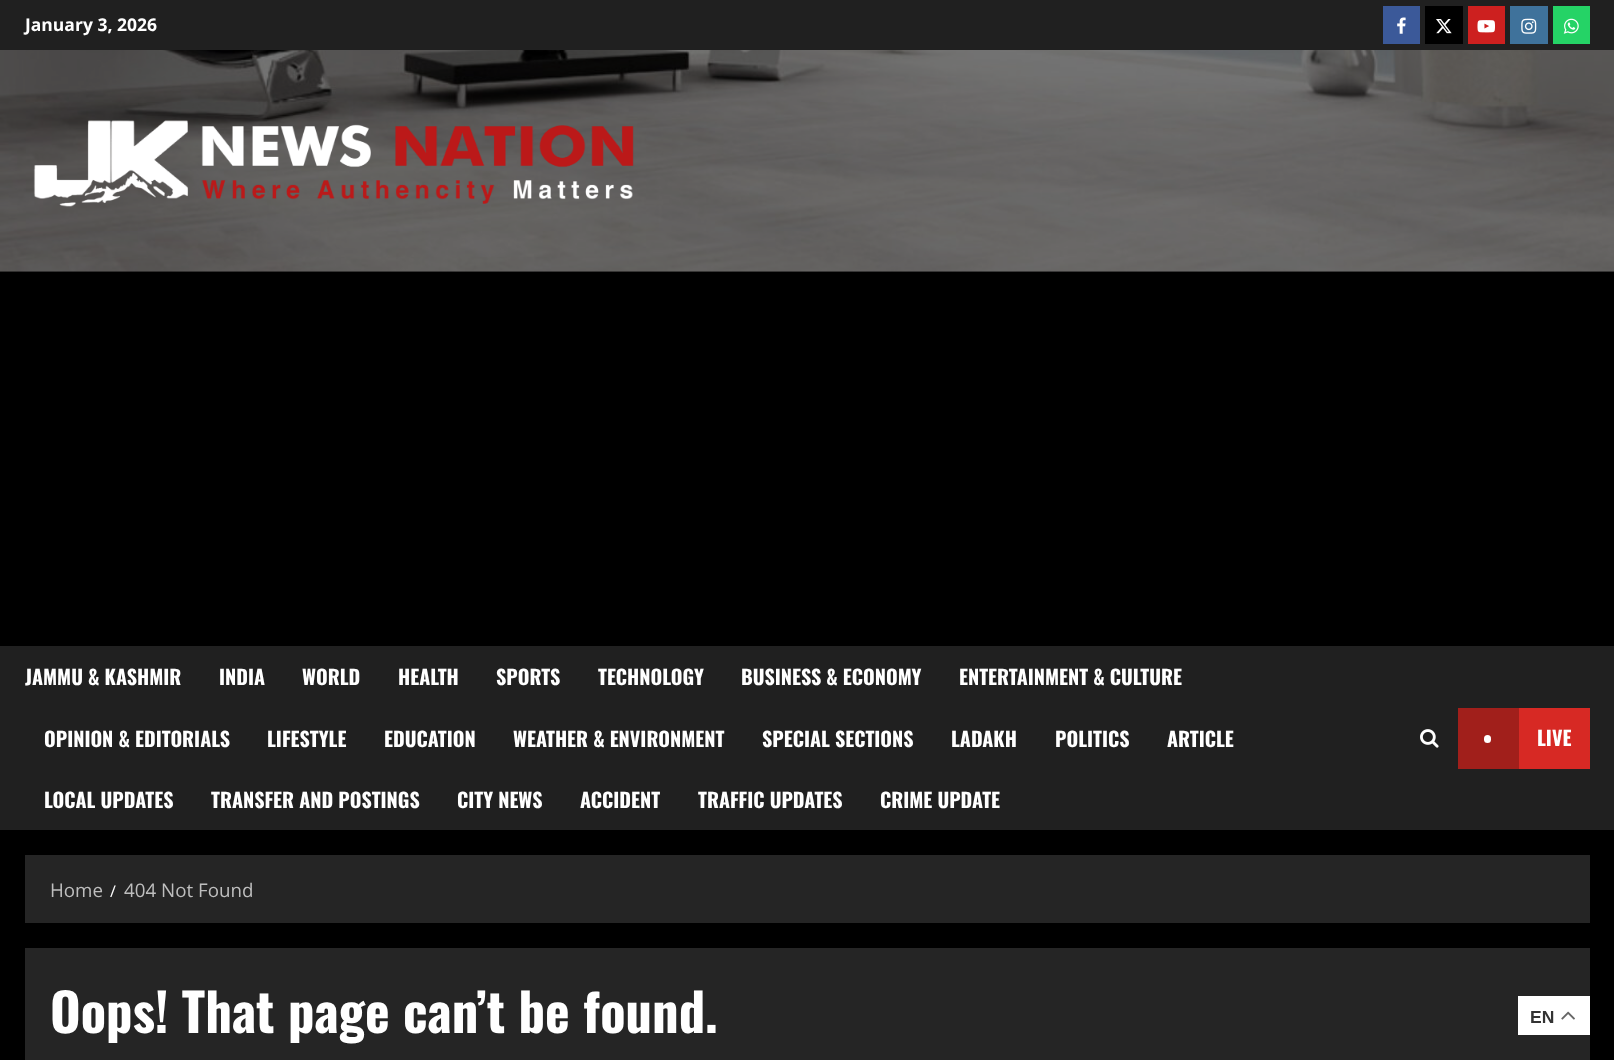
async function draw(canvas) {
	canvas.width = 1614;
	canvas.height = 1060;
	const c = canvas.getContext('2d');
	c.miterLimit = 4;
	c.fontKerning = 'normal';
	async function loadImage(src) {
		const img = new Image();
		img.src = src;
		await img.decode();
		return img;
	}

	c.fillStyle = '#000';
	c.fillRect(0, 0, 1614, 1060);
	c.fillStyle = '#202020';
	c.fillRect(0, 0, 1614, 50);
	c.font = 'bold 17.5px Open Sans';
	c.fillStyle = '#fff';
	c.fillText('January 3, 2026', 25, 31);
	c.fillStyle = '#3b5999';
	c.fillRect(1383, 6, 37, 38);
	c.drawImage(await loadImage('img1.png'), 1397, 17, 9, 17);
	c.fillStyle = '#000';
	c.fillRect(1425, 6, 38, 38);
	c.drawImage(await loadImage('img2.png'), 1436, 19, 16, 15);
	c.fillStyle = '#cd201f';
	c.fillRect(1468, 6, 37, 38);
	c.drawImage(await loadImage('img3.png'), 1477, 20, 18, 13);
	c.fillStyle = '#3f729b';
	c.fillRect(1510, 6, 38, 38);
	c.drawImage(await loadImage('img4.png'), 1521, 18, 16, 16);
	c.fillStyle = '#25d366';
	c.fillRect(1553, 6, 37, 38);
	c.drawImage(await loadImage('img5.png'), 1563, 18, 16, 16);
	c.drawImage(await loadImage('img6.png'), 0, 50, 1614, 222);
	c.drawImage(await loadImage('img7.png'), 33, 120, 601, 87);
	c.fillStyle = '#202020';
	c.fillRect(0, 646, 1614, 184);
	c.font = 'bold 20px Oswald';
	c.fillStyle = '#fff';
	for (const [text, x, y] of [
		['JAMMU & KASHMIR', 25, 685],
		['INDIA', 219, 685],
		['WORLD', 302, 685],
		['HEALTH', 398, 685],
		['SPORTS', 496, 685],
		['TECHNOLOGY', 598, 685],
		['BUSINESS & ECONOMY', 741, 685],
		['ENTERTAINMENT & CULTURE', 959, 685],
		['OPINION & EDITORIALS', 44, 747],
		['LIFESTYLE', 267, 747],
		['EDUCATION', 384, 747],
		['WEATHER & ENVIRONMENT', 513, 747],
		['SPECIAL SECTIONS', 762, 747],
		['LADAKH', 951, 747],
		['POLITICS', 1055, 747],
		['ARTICLE', 1167, 747],
		['LOCAL UPDATES', 44, 808],
		['TRANSFER AND POSTINGS', 211, 808],
		['CITY NEWS', 457, 808],
		['ACCIDENT', 580, 808],
		['TRAFFIC UPDATES', 698, 808],
		['CRIME UPDATE', 880, 808],
	]) {
		c.fillText(text, x, y);
	}
	c.drawImage(await loadImage('img8.png'), 1420, 729, 19, 19);
	c.fillStyle = '#d72924';
	c.fillRect(1519, 708, 71, 61);
	c.fillStyle = '#a11f1b';
	c.fillRect(1458, 708, 61, 61);
	c.fillStyle = '#fff';
	c.beginPath();
	c.roundRect(1484, 735, 7, 8, 3.5);
	c.fill();
	c.fillText('LIVE', 1537, 746);
	c.fillStyle = '#252525';
	c.fillRect(25, 855, 1565, 68);
	c.font = '18.75px Open Sans';
	c.fillStyle = '#bebebe';
	c.fillText('Home', 50, 897);
	c.font = '16px Open Sans';
	c.fillStyle = '#fff';
	c.fillText('/', 110, 897);
	c.font = '18.75px Open Sans';
	c.fillStyle = '#bebebe';
	c.fillText('404 Not Found', 124, 897);
	c.fillStyle = '#252525';
	c.fillRect(25, 948, 1565, 112);
	c.font = 'bold 52.5px Oswald';
	c.fillStyle = '#fff';
	c.fillText('Oops! That page can’t be found.', 50, 1033);
	c.fillRect(1518, 996, 72, 39);
	c.font = 'bold 17.5px Liberation Sans';
	c.fillStyle = '#333';
	c.fillText('EN', 1530, 1023);
	c.drawImage(await loadImage('img9.png'), 1561, 1011, 14, 9);
}

draw(document.querySelector('canvas'));
